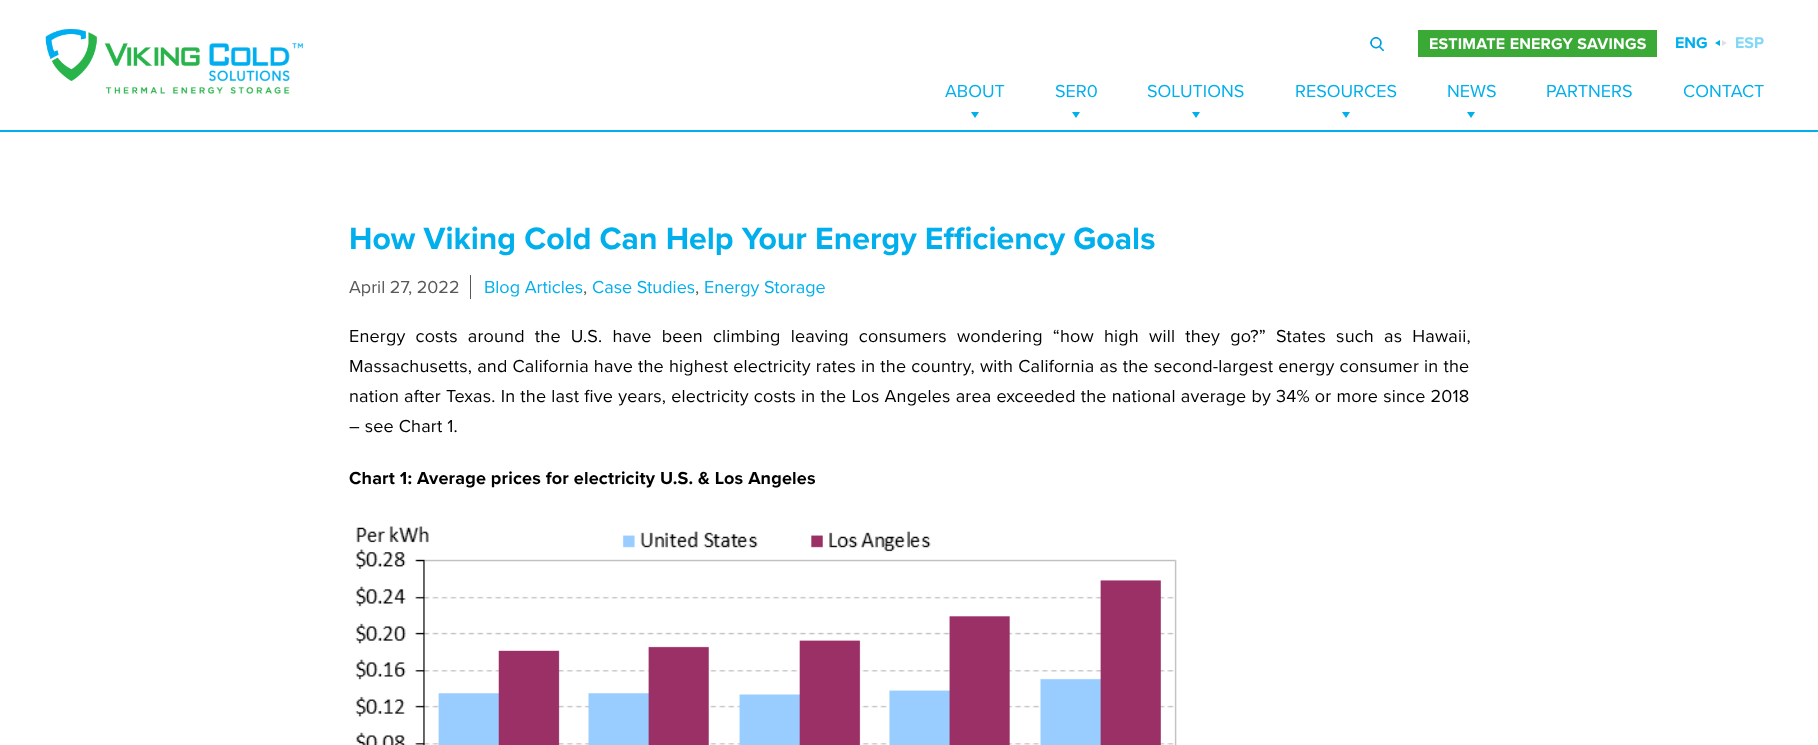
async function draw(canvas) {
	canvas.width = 1818;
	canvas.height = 745;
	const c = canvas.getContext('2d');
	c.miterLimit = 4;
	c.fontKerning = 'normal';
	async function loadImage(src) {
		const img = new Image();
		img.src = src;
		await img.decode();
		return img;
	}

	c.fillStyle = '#fff';
	c.fillRect(0, 0, 1818, 745);
	c.fillStyle = '#00afec';
	c.fillRect(0, 130, 1818, 2);
	c.drawImage(await loadImage('img1.png'), 45, 29, 258, 65);
	c.drawImage(await loadImage('img2.png'), 1370, 37, 14, 14);
	c.fillStyle = '#3aa935';
	c.fillRect(1418, 30, 239, 27);
	c.letterSpacing = '0.2px';
	c.font = 'bold 16px Proxima Nova';
	c.fillStyle = '#fff';
	c.fillText('ESTIMATE ENERGY SAVINGS', 1429, 49);
	c.letterSpacing = '0px';
	c.fillStyle = '#00afec';
	c.fillText('ENG', 1675, 48);
	c.beginPath();
	c.moveTo(1720, 40);
	c.lineTo(1720, 46);
	c.lineTo(1715, 43);
	c.closePath();
	c.fill();
	c.fillStyle = '#e0e0e0';
	c.beginPath();
	c.moveTo(1722, 46);
	c.lineTo(1722, 40);
	c.lineTo(1727, 43);
	c.closePath();
	c.fill();
	c.fillStyle = '#80d7f6';
	c.fillText('ESP', 1735, 48);
	c.font = '18px Proxima Nova';
	c.fillStyle = '#00afec';
	c.fillText('ABOUT', 945, 97);
	c.beginPath();
	c.moveTo(971, 112);
	c.lineTo(979, 112);
	c.lineTo(975, 118);
	c.closePath();
	c.fill();
	c.fillText('SER0', 1055, 97);
	c.beginPath();
	c.moveTo(1072, 112);
	c.lineTo(1080, 112);
	c.lineTo(1076, 118);
	c.closePath();
	c.fill();
	c.fillText('SOLUTIONS', 1147, 97);
	c.beginPath();
	c.moveTo(1192, 112);
	c.lineTo(1200, 112);
	c.lineTo(1196, 118);
	c.closePath();
	c.fill();
	c.fillText('RESOURCES', 1295, 97);
	c.beginPath();
	c.moveTo(1342, 112);
	c.lineTo(1350, 112);
	c.lineTo(1346, 118);
	c.closePath();
	c.fill();
	c.fillText('NEWS', 1447, 97);
	c.beginPath();
	c.moveTo(1467, 112);
	c.lineTo(1475, 112);
	c.lineTo(1471, 118);
	c.closePath();
	c.fill();
	c.fillText('PARTNERS', 1546, 97);
	c.fillText('CONTACT', 1683, 97);
	c.font = 'bold 32px Proxima Nova';
	c.fillText('How Viking Cold Can Help Your Energy Efficiency Goals', 349, 249);
	c.font = '18px Proxima Nova';
	c.fillStyle = '#585858';
	c.fillText('April 27, 2022', 349, 293);
	c.fillRect(470, 275, 1, 24);
	c.fillStyle = '#00afec';
	c.fillText('Blog Articles', 484, 293);
	c.fillStyle = '#585858';
	c.fillText(',', 583, 293);
	c.fillStyle = '#00afec';
	c.fillText('Case Studies', 592, 293);
	c.fillStyle = '#585858';
	c.fillText(',', 695, 293);
	c.fillStyle = '#00afec';
	c.fillText('Energy Storage', 704, 293);
	c.letterSpacing = '0.18px';
	c.wordSpacing = '5.25px';
	c.fillStyle = '#000';
	c.fillText('Energy costs around the U.S. have been climbing leaving consumers wondering “how high will they go?” States such as Hawaii,', 349, 342);
	c.wordSpacing = '0.2px';
	c.fillText('Massachusetts, and California have the highest electricity rates in the country, with California as the second-largest energy consumer in the', 349, 372);
	c.wordSpacing = '0.25px';
	c.fillText('nation after Texas. In the last five years, electricity costs in the Los Angeles area exceeded the national average by 34% or more since 2018', 349, 402);
	c.wordSpacing = '0px';
	c.fillText('– see Chart 1.', 349, 432);
	c.font = 'bold 18px Proxima Nova';
	c.fillText('Chart 1: Average prices for electricity U.S. & Los Angeles', 349, 484);
	c.drawImage(await loadImage('img3.png'), 355, 526, 822, 219);
}

draw(document.querySelector('canvas'));
